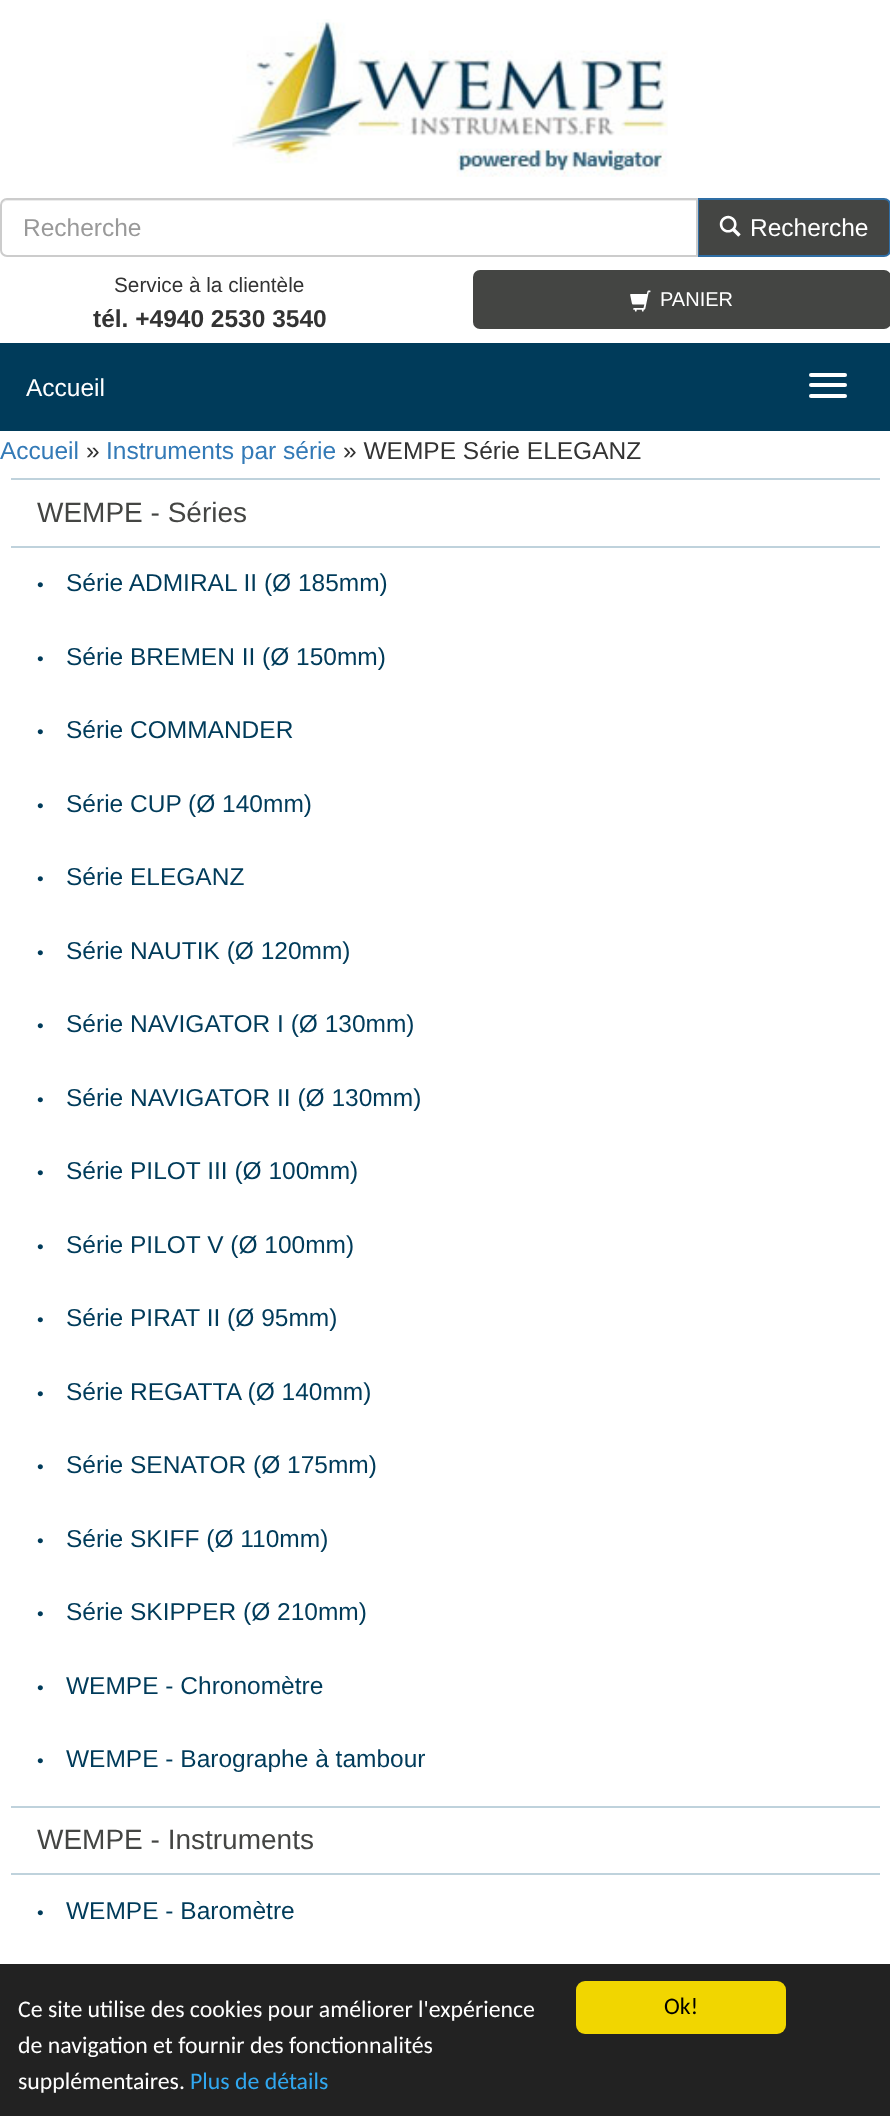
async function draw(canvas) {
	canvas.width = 890;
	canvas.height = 2116;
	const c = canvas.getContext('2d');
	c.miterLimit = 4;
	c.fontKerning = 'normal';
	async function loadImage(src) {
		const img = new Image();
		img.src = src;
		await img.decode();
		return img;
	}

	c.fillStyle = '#fff';
	c.fillRect(0, 0, 890, 2116);
	c.drawImage(await loadImage('img1.png'), 232, 19, 436, 158);
	c.fillStyle = '#444543';
	c.beginPath();
	c.moveTo(698, 199);
	c.lineTo(884, 199);
	c.bezierCurveTo(887.5, 199, 890, 201.5, 890, 205);
	c.lineTo(890, 250);
	c.bezierCurveTo(890, 253.5, 887.5, 256, 884, 256);
	c.lineTo(698, 256);
	c.closePath();
	c.fill();
	c.strokeStyle = '#2e6da4';
	c.lineWidth = 2;
	c.stroke();
	c.fillStyle = '#fff';
	c.beginPath();
	c.roundRect(0, 198, 698, 59, [7, 0, 0, 7]);
	c.fill();
	c.fillStyle = '#ececec';
	c.beginPath();
	c.moveTo(7, 201);
	c.lineTo(696, 201);
	c.lineTo(696, 256);
	c.lineTo(697, 256);
	c.lineTo(697, 200);
	c.lineTo(7, 200);
	c.bezierCurveTo(4, 200, 2, 203, 2, 206);
	c.bezierCurveTo(2, 204, 4, 201, 7, 201);
	c.closePath();
	c.fill();
	c.beginPath();
	c.roundRect(1, 199, 696, 57, [6, 0, 0, 6]);
	c.strokeStyle = '#ccc';
	c.stroke();
	c.font = '24.5px Liberation Sans';
	c.fillStyle = '#999';
	c.fillText('Recherche', 23, 236);
	c.drawImage(await loadImage('img2.png'), 719, 215, 22, 22);
	c.fillStyle = '#fff';
	c.fillText('Recherche', 750, 236);
	c.font = '20.75px Liberation Sans';
	c.fillStyle = '#333';
	c.fillText('Service à la clientèle', 114, 292);
	c.font = 'bold 24.5px Liberation Sans';
	c.fillText('tél. +4940 2530 3540', 93, 327);
	c.fillStyle = '#444543';
	c.beginPath();
	c.roundRect(473, 270, 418, 59, 7);
	c.fill();
	c.drawImage(await loadImage('img3.png'), 630, 290, 21, 22);
	c.font = '20px Liberation Sans';
	c.fillStyle = '#fff';
	c.fillText('PANIER', 660, 306);
	c.fillStyle = '#003b5a';
	c.fillRect(0, 343, 890, 88);
	c.font = '24.5px Liberation Sans';
	c.fillStyle = '#fff';
	c.fillText('Accueil', 26, 396);
	c.beginPath();
	c.roundRect(809, 373, 38, 4, 2);
	c.fill();
	c.beginPath();
	c.roundRect(809, 383, 38, 4, 2);
	c.fill();
	c.beginPath();
	c.roundRect(809, 394, 38, 4, 2);
	c.fill();
	c.fillStyle = '#337ab7';
	c.fillText('Accueil', 0, 459);
	c.fillStyle = '#333';
	c.fillText('»', 86, 459);
	c.fillStyle = '#337ab7';
	c.fillText('Instruments par série', 106, 459);
	c.fillStyle = '#333';
	c.fillText('» WEMPE Série ELEGANZ', 343, 459);
	c.fillStyle = '#bfd2dc';
	c.fillRect(11, 478, 869, 2);
	c.fillRect(11, 546, 869, 2);
	c.font = '28px Liberation Sans';
	c.fillStyle = '#444543';
	c.fillText('WEMPE - Séries', 37, 522);
	c.font = '19px Liberation Sans';
	c.fillStyle = '#003b5a';
	c.fillText('•', 37, 591);
	c.font = '24.5px Liberation Sans';
	c.fillText('Série ADMIRAL II (Ø 185mm)', 66, 591);
	c.font = '19px Liberation Sans';
	c.fillText('•', 37, 665);
	c.font = '24.5px Liberation Sans';
	c.fillText('Série BREMEN II (Ø 150mm)', 66, 665);
	c.font = '19px Liberation Sans';
	c.fillText('•', 37, 738);
	c.font = '24.5px Liberation Sans';
	c.fillText('Série COMMANDER', 66, 738);
	c.font = '19px Liberation Sans';
	c.fillText('•', 37, 812);
	c.font = '24.5px Liberation Sans';
	c.fillText('Série CUP (Ø 140mm)', 66, 812);
	c.font = '19px Liberation Sans';
	c.fillText('•', 37, 885);
	c.font = '24.5px Liberation Sans';
	c.fillText('Série ELEGANZ', 66, 885);
	c.font = '19px Liberation Sans';
	c.fillText('•', 37, 959);
	c.font = '24.5px Liberation Sans';
	c.fillText('Série NAUTIK (Ø 120mm)', 66, 959);
	c.font = '19px Liberation Sans';
	c.fillText('•', 37, 1032);
	c.font = '24.5px Liberation Sans';
	c.fillText('Série NAVIGATOR I (Ø 130mm)', 66, 1032);
	c.font = '19px Liberation Sans';
	c.fillText('•', 37, 1106);
	c.font = '24.5px Liberation Sans';
	c.fillText('Série NAVIGATOR II (Ø 130mm)', 66, 1106);
	c.font = '19px Liberation Sans';
	c.fillText('•', 37, 1179);
	c.font = '24.5px Liberation Sans';
	c.fillText('Série PILOT III (Ø 100mm)', 66, 1179);
	c.font = '19px Liberation Sans';
	c.fillText('•', 37, 1253);
	c.font = '24.5px Liberation Sans';
	c.fillText('Série PILOT V (Ø 100mm)', 66, 1253);
	c.font = '19px Liberation Sans';
	c.fillText('•', 37, 1326);
	c.font = '24.5px Liberation Sans';
	c.fillText('Série PIRAT II (Ø 95mm)', 66, 1326);
	c.font = '19px Liberation Sans';
	c.fillText('•', 37, 1400);
	c.font = '24.5px Liberation Sans';
	c.fillText('Série REGATTA (Ø 140mm)', 66, 1400);
	c.font = '19px Liberation Sans';
	c.fillText('•', 37, 1473);
	c.font = '24.5px Liberation Sans';
	c.fillText('Série SENATOR (Ø 175mm)', 66, 1473);
	c.font = '19px Liberation Sans';
	c.fillText('•', 37, 1547);
	c.font = '24.5px Liberation Sans';
	c.fillText('Série SKIFF (Ø 110mm)', 66, 1547);
	c.font = '19px Liberation Sans';
	c.fillText('•', 37, 1620);
	c.font = '24.5px Liberation Sans';
	c.fillText('Série SKIPPER (Ø 210mm)', 66, 1620);
	c.font = '19px Liberation Sans';
	c.fillText('•', 37, 1694);
	c.font = '24.5px Liberation Sans';
	c.fillText('WEMPE - Chronomètre', 66, 1694);
	c.font = '19px Liberation Sans';
	c.fillText('•', 37, 1767);
	c.font = '24.5px Liberation Sans';
	c.fillText('WEMPE - Barographe à tambour', 66, 1767);
	c.fillStyle = '#bfd2dc';
	c.fillRect(11, 1806, 869, 2);
	c.fillRect(11, 1873, 869, 2);
	c.font = '28px Liberation Sans';
	c.fillStyle = '#444543';
	c.fillText('WEMPE - Instruments', 37, 1849);
	c.font = '19px Liberation Sans';
	c.fillStyle = '#003b5a';
	c.fillText('•', 37, 1919);
	c.font = '24.5px Liberation Sans';
	c.fillText('WEMPE - Baromètre', 66, 1919);
	c.fillStyle = '#222';
	c.fillRect(0, 1964, 890, 152);
	c.font = '23.8px Carlito';
	c.fillStyle = '#fff';
	for (const [text, x, y] of [
		['Ce site utilise des cookies pour améliorer l\'expérience', 18, 2017],
		['de navigation et fournir des fonctionnalités', 18, 2053],
		['supplémentaires.', 18, 2089],
	]) {
		c.fillText(text, x, y);
	}
	c.fillStyle = '#31a8f0';
	c.fillText('Plus de détails', 190, 2089);
	c.fillStyle = '#f1d600';
	c.beginPath();
	c.roundRect(576, 1981, 210, 53, 9);
	c.fill();
	c.fillStyle = '#000';
	c.fillText('Ok!', 664, 2014);
}

draw(document.querySelector('canvas'));
